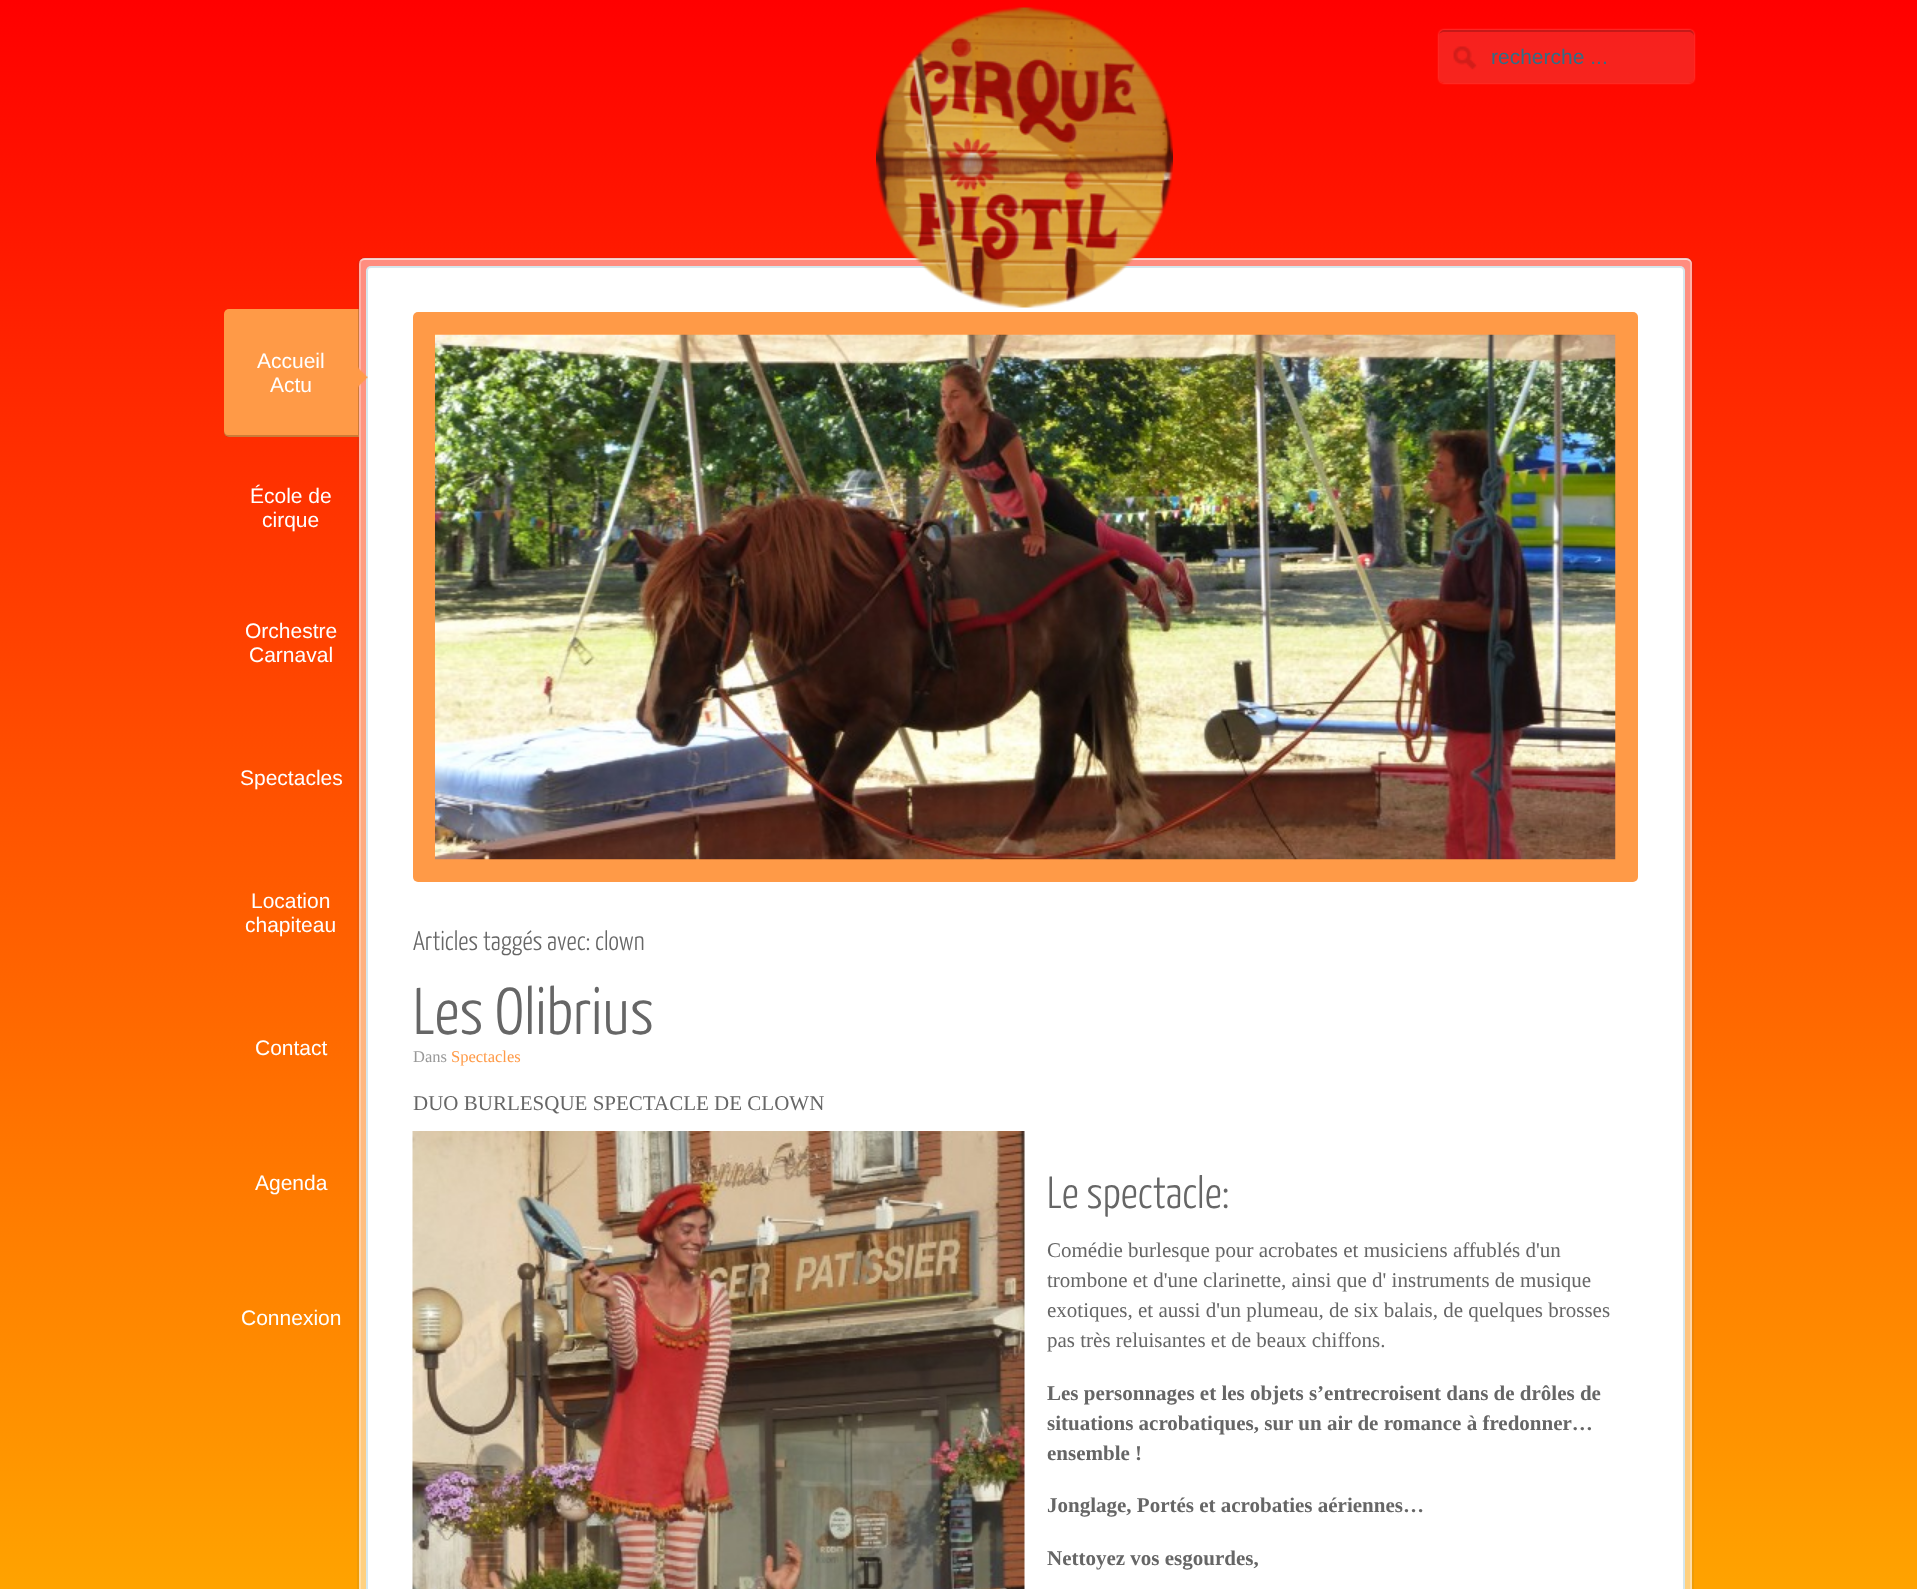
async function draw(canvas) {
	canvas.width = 1917;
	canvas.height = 1589;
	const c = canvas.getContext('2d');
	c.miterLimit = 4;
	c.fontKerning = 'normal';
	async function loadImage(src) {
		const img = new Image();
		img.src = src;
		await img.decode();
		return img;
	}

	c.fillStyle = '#fff';
	c.fillRect(0, 0, 1917, 1589);
	c.drawImage(await loadImage('img1.png'), 0, 0, 1917, 1589);
	c.fillStyle = '#ffffff80';
	c.beginPath();
	c.roundRect(359, 258, 1333, 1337, 6);
	c.fill();
	c.beginPath();
	c.roundRect(360, 259, 1331, 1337, 5);
	c.strokeStyle = '#ffffff4d';
	c.lineWidth = 2;
	c.stroke();
	c.beginPath();
	c.moveTo(364, 260);
	c.lineTo(1686, 260);
	c.bezierCurveTo(1689, 260, 1692, 262, 1692, 266);
	c.lineTo(1692, 264);
	c.bezierCurveTo(1692, 261, 1689, 258, 1686, 258);
	c.lineTo(365, 258);
	c.bezierCurveTo(362, 258, 360, 260, 359, 262);
	c.bezierCurveTo(360, 261, 362, 260, 364, 260);
	c.closePath();
	c.fill();
	c.beginPath();
	c.roundRect(358, 258, 1335, 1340, 7);
	c.strokeStyle = '#1e5a6414';
	c.stroke();
	c.fillStyle = '#fff';
	c.beginPath();
	c.roundRect(366, 266, 1319, 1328, 5);
	c.fill();
	c.beginPath();
	c.roundRect(367, 267, 1317, 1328, 4);
	c.strokeStyle = '#3287a533';
	c.stroke();
	c.drawImage(await loadImage('img2.png'), 876, 7, 297, 301);
	c.save();
	c.beginPath();
	c.moveTo(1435, 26);
	c.lineTo(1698, 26);
	c.lineTo(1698, 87);
	c.lineTo(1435, 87);
	c.closePath();
	c.moveTo(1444, 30);
	c.lineTo(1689, 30);
	c.bezierCurveTo(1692, 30, 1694, 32, 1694, 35);
	c.lineTo(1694, 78);
	c.bezierCurveTo(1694, 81, 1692, 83, 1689, 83);
	c.lineTo(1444, 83);
	c.bezierCurveTo(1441, 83, 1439, 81, 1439, 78);
	c.lineTo(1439, 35);
	c.bezierCurveTo(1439, 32, 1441, 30, 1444, 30);
	c.closePath();
	c.clip('evenodd');
	c.fillStyle = '#ffffff66';
	c.filter = 'blur(1px)';
	c.beginPath();
	c.roundRect(1439, 30, 255, 53, 5);
	c.fill();
	c.filter = 'none';
	c.restore();
	c.fillStyle = '#c8c8c826';
	c.beginPath();
	c.roundRect(1439, 30, 255, 53, 5);
	c.fill();
	c.drawImage(await loadImage('img3.png'), 1453, 46, 24, 24);
	c.fillStyle = '#00000033';
	c.beginPath();
	c.moveTo(1443, 32);
	c.lineTo(1689, 32);
	c.bezierCurveTo(1691, 32, 1694, 34, 1694, 36);
	c.lineTo(1694, 35);
	c.bezierCurveTo(1694, 32, 1692, 30, 1689, 30);
	c.lineTo(1444, 30);
	c.bezierCurveTo(1442, 30, 1440, 32, 1439, 34);
	c.bezierCurveTo(1440, 33, 1442, 32, 1443, 32);
	c.closePath();
	c.fill();
	c.font = '21px Liberation Sans';
	c.fillStyle = '#316e86';
	c.fillText('recherche ...', 1491, 64);
	c.fillStyle = '#ff9a47';
	c.beginPath();
	c.roundRect(224, 309, 135, 128, [5, 0, 0, 5]);
	c.fill();
	c.fillStyle = '#00000033';
	c.beginPath();
	c.moveTo(224, 430);
	c.lineTo(224, 432);
	c.bezierCurveTo(224, 435, 226, 437, 229, 437);
	c.lineTo(359, 437);
	c.lineTo(359, 309);
	c.lineTo(358, 309);
	c.lineTo(358, 435);
	c.lineTo(228, 435);
	c.bezierCurveTo(226, 435, 224, 433, 224, 430);
	c.closePath();
	c.fill();
	c.fillStyle = '#fff';
	c.fillText('Accueil', 257, 368);
	c.fillText('Actu', 270, 392);
	c.drawImage(await loadImage('img4.png'), 358, 367, 10, 21);
	for (const [text, x, y] of [
		['École de', 250, 503],
		['cirque', 262, 527],
		['Orchestre', 245, 638],
		['Carnaval', 249, 662],
		['Spectacles', 240, 785],
		['Location', 251, 908],
		['chapiteau', 245, 932],
		['Contact', 255, 1055],
		['Agenda', 255, 1190],
		['Connexion', 241, 1325],
	]) {
		c.fillText(text, x, y);
	}
	c.fillStyle = '#ff9a47';
	c.beginPath();
	c.roundRect(413, 312, 1225, 570, 5);
	c.fill();
	c.drawImage(await loadImage('img5.png'), 435, 334, 1181, 526);
	c.font = '300 27px Yanone Kaffeesatz';
	c.fillStyle = '#666';
	c.fillText('Articles taggés avec: clown', 413, 950);
	c.font = '300 66px Yanone Kaffeesatz';
	c.fillText('Les Olibrius', 413, 1034);
	c.font = '16.5px Liberation Serif';
	c.fillStyle = '#999';
	c.fillText('Dans', 413, 1062);
	c.fillStyle = '#ff9a47';
	c.fillText('Spectacles', 451, 1062);
	c.font = '21px Liberation Serif';
	c.fillStyle = '#666';
	c.fillText('DUO BURLESQUE SPECTACLE DE CLOWN', 413, 1110);
	c.drawImage(await loadImage('img6.png'), 412, 1131, 613, 458);
	c.font = '300 45px Yanone Kaffeesatz';
	c.fillText('Le spectacle:', 1047, 1208);
	c.font = '21px Liberation Serif';
	for (const [text, x, y] of [
		['Comédie burlesque pour acrobates et musiciens affublés d\'un', 1047, 1257],
		['trombone et d\'une clarinette, ainsi que d\' instruments de musique', 1047, 1287],
		['exotiques, et aussi d\'un plumeau, de six balais, de quelques brosses', 1047, 1317],
		['pas très reluisantes et de beaux chiffons.', 1047, 1347],
	]) {
		c.fillText(text, x, y);
	}
	c.font = 'bold 21px Liberation Serif';
	for (const [text, x, y] of [
		['Les personnages et les objets s’entrecroisent dans de drôles de', 1047, 1400],
		['situations acrobatiques, sur un air de romance à fredonner…', 1047, 1430],
		['ensemble !', 1047, 1460],
		['Jonglage, Portés et acrobaties aériennes…', 1047, 1512],
		['Nettoyez vos esgourdes,', 1047, 1565],
	]) {
		c.fillText(text, x, y);
	}
}

draw(document.querySelector('canvas'));
